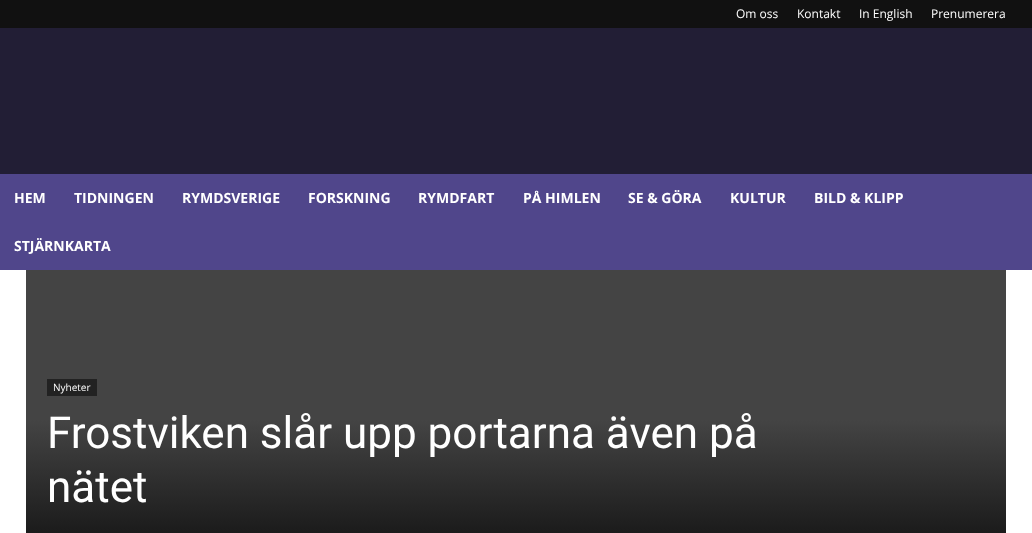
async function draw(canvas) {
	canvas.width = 1032;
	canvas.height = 533;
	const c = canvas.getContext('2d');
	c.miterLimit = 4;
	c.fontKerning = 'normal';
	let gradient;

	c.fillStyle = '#fff';
	c.fillRect(0, 0, 1032, 533);
	c.fillStyle = '#111';
	c.fillRect(0, 0, 1032, 28);
	c.font = '12px Open Sans';
	c.fillStyle = '#fff';
	for (const [text, x, y] of [
		['Om oss', 736, 18],
		['Kontakt', 797, 18],
		['In English', 859, 18],
		['Prenumerera', 931, 18],
	]) {
		c.fillText(text, x, y);
	}
	c.fillStyle = '#221e35';
	c.fillRect(0, 28, 1032, 146);
	c.fillStyle = '#50468b';
	c.fillRect(0, 174, 1032, 96);
	c.font = 'bold 14px Open Sans';
	c.fillStyle = '#fff';
	for (const [text, x, y] of [
		['HEM', 14, 203],
		['TIDNINGEN', 74, 203],
		['RYMDSVERIGE', 182, 203],
		['FORSKNING', 308, 203],
		['RYMDFART', 418, 203],
		['PÅ HIMLEN', 523, 203],
		['SE & GÖRA', 628, 203],
		['KULTUR', 730, 203],
		['BILD & KLIPP', 814, 203],
		['STJÄRNKARTA', 14, 251],
	]) {
		c.fillText(text, x, y);
	}
	c.fillStyle = '#444';
	c.fillRect(26, 270, 980, 150);
	c.fillStyle = '#222';
	c.fillRect(47, 379, 50, 17);
	c.font = '10px Open Sans';
	c.fillStyle = '#fff';
	c.fillText('Nyheter', 53, 391);
	gradient = c.createLinearGradient(516, 420, 516, 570);
	gradient.addColorStop(0, '#444');
	gradient.addColorStop(1, '#0e0e0e');
	c.fillStyle = gradient;
	c.fillRect(26, 420, 980, 113);
	c.font = '44px Roboto';
	c.fillStyle = '#fff';
	c.fillText('Frostviken slår upp portarna även på', 47, 448);
	c.fillText('nätet', 47, 502);
}

draw(document.querySelector('canvas'));
